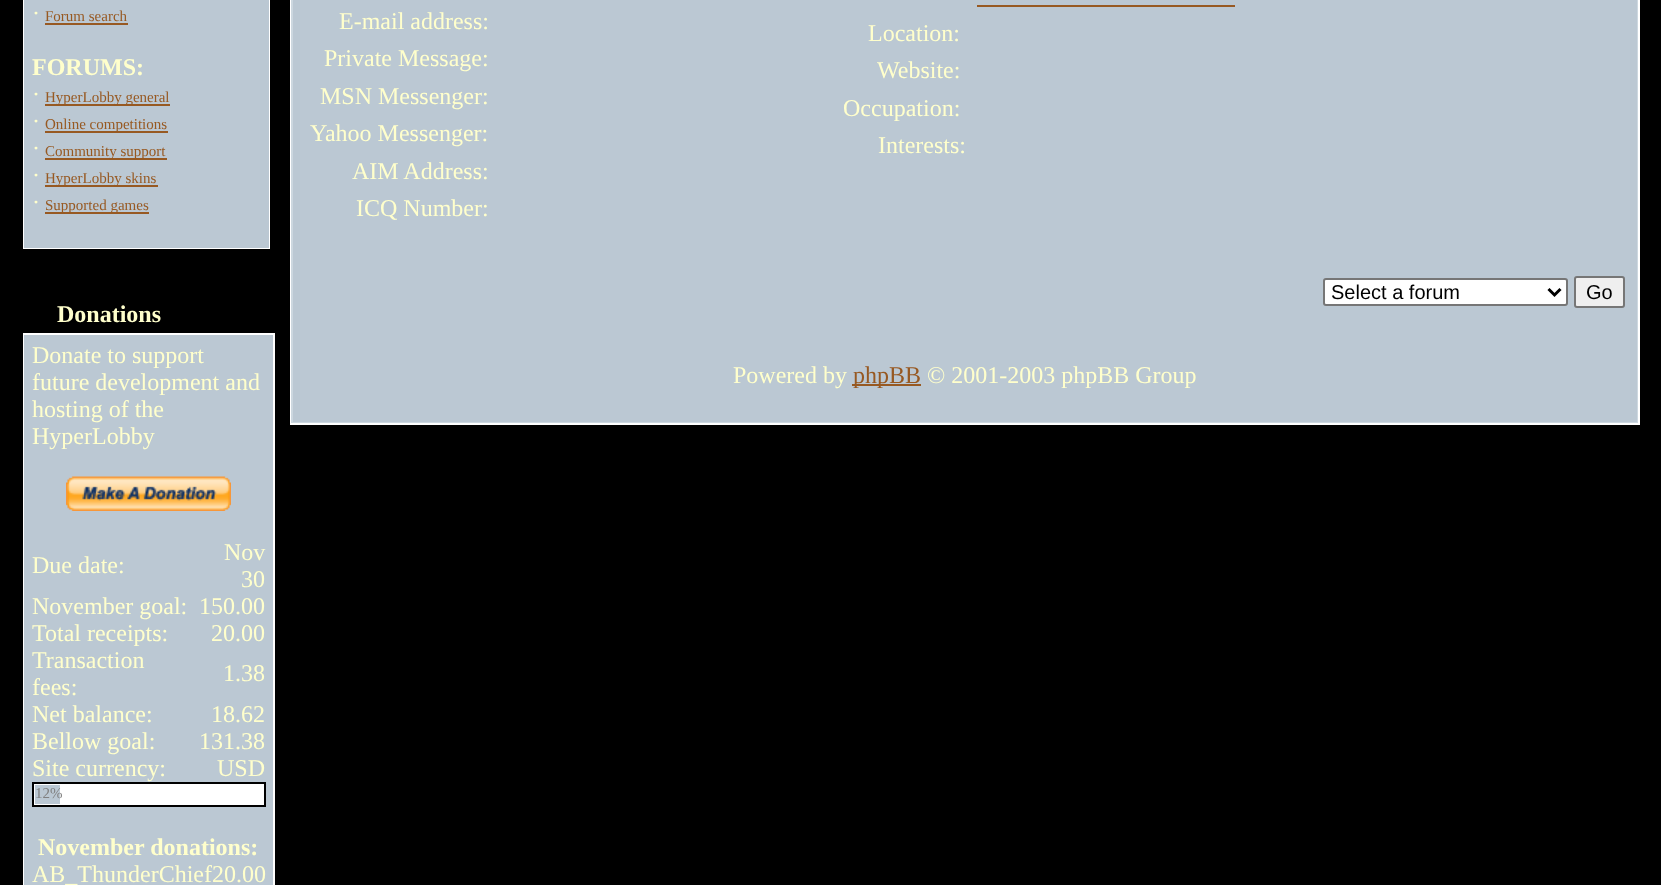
async function draw(canvas) {
	canvas.width = 1661;
	canvas.height = 885;
	const c = canvas.getContext('2d');
	c.miterLimit = 4;
	c.fontKerning = 'normal';
	async function loadImage(src) {
		const img = new Image();
		img.src = src;
		await img.decode();
		return img;
	}

	c.fillStyle = '#000';
	c.fillRect(0, 0, 1661, 885);
	c.fillStyle = '#fff';
	c.fillRect(23, 0, 247, 249);
	c.fillStyle = '#bbc8d3';
	c.fillRect(24, 0, 245, 248);
	c.font = '24px Liberation Serif';
	c.fillStyle = '#ffc';
	c.fillText('·', 32, 21);
	c.font = '15px Liberation Serif';
	c.fillStyle = '#975922';
	c.fillText('Forum search', 45, 21);
	c.fillRect(45, 23, 83, 2);
	c.font = 'bold 24px Liberation Serif';
	c.fillStyle = '#ffc';
	c.fillText('FORUMS:', 32, 75);
	c.font = '24px Liberation Serif';
	c.fillText('·', 32, 102);
	c.fillStyle = '#975922';
	c.fillRect(45, 104, 125, 2);
	c.font = '15px Liberation Serif';
	c.fillText('HyperLobby general', 45, 102);
	c.font = '24px Liberation Serif';
	c.fillStyle = '#ffc';
	c.fillText('·', 32, 129);
	c.fillStyle = '#975922';
	c.fillRect(45, 131, 123, 2);
	c.font = '15px Liberation Serif';
	c.fillText('Online competitions', 45, 129);
	c.font = '24px Liberation Serif';
	c.fillStyle = '#ffc';
	c.fillText('·', 32, 156);
	c.fillStyle = '#975922';
	c.fillRect(45, 158, 122, 2);
	c.font = '15px Liberation Serif';
	c.fillText('Community support', 45, 156);
	c.font = '24px Liberation Serif';
	c.fillStyle = '#ffc';
	c.fillText('·', 32, 183);
	c.fillStyle = '#975922';
	c.fillRect(45, 185, 113, 2);
	c.font = '15px Liberation Serif';
	c.fillText('HyperLobby skins', 45, 183);
	c.font = '24px Liberation Serif';
	c.fillStyle = '#ffc';
	c.fillText('·', 32, 210);
	c.fillStyle = '#975922';
	c.fillRect(45, 212, 104, 2);
	c.font = '15px Liberation Serif';
	c.fillText('Supported games', 45, 210);
	c.font = 'bold 24px Liberation Serif';
	c.fillStyle = '#ffc';
	c.fillText('Donations', 57, 322);
	c.fillStyle = '#fff';
	c.fillRect(23, 333, 252, 552);
	c.fillStyle = '#bbc8d3';
	c.fillRect(24, 335, 249, 550);
	c.font = '24px Liberation Serif';
	c.fillStyle = '#ffc';
	for (const [text, x, y] of [
		['Donate to support', 32, 363],
		['future development and', 32, 390],
		['hosting of the', 32, 417],
		['HyperLobby', 32, 444],
	]) {
		c.fillText(text, x, y);
	}
	c.drawImage(await loadImage('img1.png'), 66, 476, 165, 35);
	for (const [text, x, y] of [
		['Due date:', 32, 573],
		['Nov', 224, 560],
		['30', 241, 587],
		['November goal:', 32, 614],
		['150.00', 199, 614],
		['Total receipts:', 32, 641],
		['20.00', 211, 641],
		['Transaction', 32, 668],
		['fees:', 32, 695],
		['1.38', 223, 681],
		['Net balance:', 32, 722],
		['18.62', 211, 722],
		['Bellow goal:', 32, 749],
		['131.38', 199, 749],
		['Site currency:', 32, 776],
		['USD', 217, 776],
	]) {
		c.fillText(text, x, y);
	}
	c.fillStyle = '#fff';
	c.beginPath();
	c.rect(33, 783, 232, 23);
	c.fill();
	c.strokeStyle = '#000';
	c.lineWidth = 2;
	c.stroke();
	c.fillStyle = '#bbc8d3';
	c.fillRect(35, 785, 25, 19);
	c.font = '15px Liberation Serif';
	c.fillStyle = '#808080';
	c.fillText('12%', 35, 798);
	c.font = 'bold 24px Liberation Serif';
	c.fillStyle = '#ffc';
	c.fillText('November donations:', 38, 855);
	c.font = '24px Liberation Serif';
	c.fillText('AB_ThunderChief20.00', 32, 882);
	for (const [x, y, w, h, color] of [
		[290, 0, 1350, 425, '#fff'],
		[291, 0, 1347, 423, '#cdd8e0'],
		[293, 0, 1344, 422, '#bbc8d3'],
	]) {
		c.fillStyle = color;
		c.fillRect(x, y, w, h);
	}
	c.fillStyle = '#ffc';
	for (const [text, x, y] of [
		['E-mail address:', 339, 29],
		['Private Message:', 324, 66],
		['MSN Messenger:', 320, 104],
		['Yahoo Messenger:', 310, 141],
		['AIM Address:', 352, 179],
		['ICQ Number:', 356, 216],
	]) {
		c.fillText(text, x, y);
	}
	c.fillStyle = '#975922';
	c.fillRect(977, 5, 258, 2);
	c.fillStyle = '#ffc';
	for (const [text, x, y] of [
		['Location:', 868, 41],
		['Website:', 877, 78],
		['Occupation:', 843, 116],
		['Interests:', 878, 153],
	]) {
		c.fillText(text, x, y);
	}
	c.fillStyle = '#fff';
	c.beginPath();
	c.roundRect(1324, 279, 243, 26, 2);
	c.fill();
	c.strokeStyle = '#767676';
	c.stroke();
	c.beginPath();
	c.moveTo(1548.5, 289);
	c.lineTo(1554.5, 295);
	c.lineTo(1560.5, 289);
	c.strokeStyle = '#000';
	c.lineWidth = 3;
	c.stroke();
	c.font = '20px Liberation Sans';
	c.fillStyle = '#000';
	c.fillText('Select a forum', 1331, 299);
	c.fillStyle = '#efefef';
	c.beginPath();
	c.roundRect(1575, 277, 49, 30, 2);
	c.fill();
	c.strokeStyle = '#767676';
	c.lineWidth = 2;
	c.stroke();
	c.fillStyle = '#000';
	c.fillText('Go', 1586, 299);
	c.font = '24px Liberation Serif';
	c.fillStyle = '#ffc';
	c.fillText('Powered by', 733, 383);
	c.fillStyle = '#975922';
	c.fillRect(852, 384, 69, 2);
	c.fillText('phpBB', 853, 383);
	c.fillStyle = '#ffc';
	c.fillText('© 2001-2003 phpBB Group', 927, 383);
}

draw(document.querySelector('canvas'));
